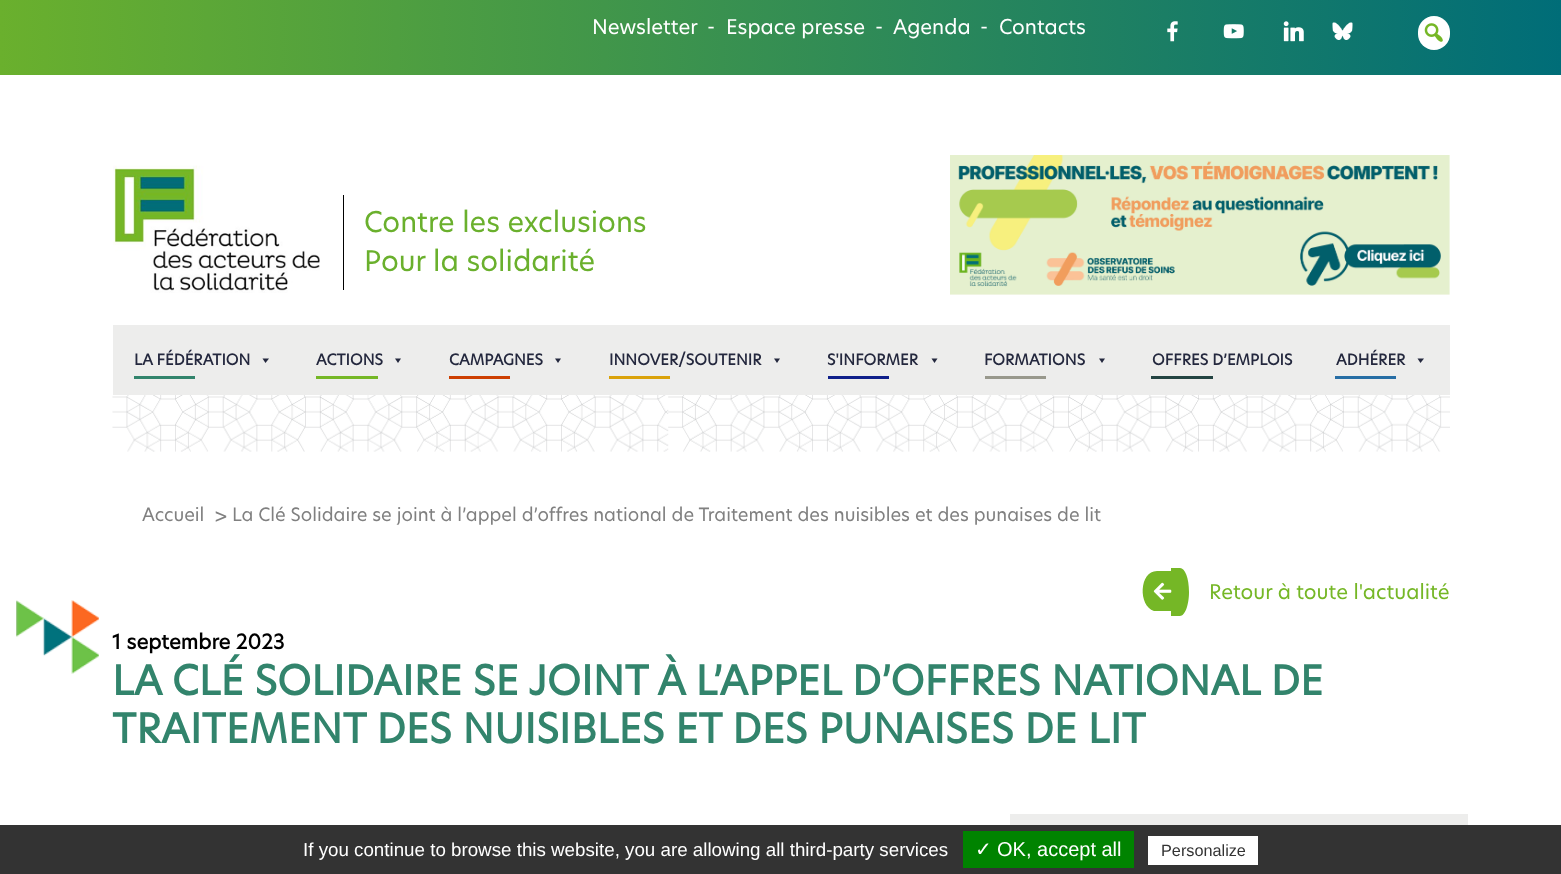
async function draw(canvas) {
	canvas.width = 1561;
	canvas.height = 874;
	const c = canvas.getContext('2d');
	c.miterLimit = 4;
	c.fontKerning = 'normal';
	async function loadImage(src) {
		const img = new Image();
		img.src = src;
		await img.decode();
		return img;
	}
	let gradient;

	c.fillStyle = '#fff';
	c.fillRect(0, 0, 1561, 874);
	gradient = c.createLinearGradient(0, 38, 1561, 37);
	gradient.addColorStop(0, '#6ab02d');
	gradient.addColorStop(1, '#006d78');
	c.fillStyle = gradient;
	c.fillRect(0, 0, 1561, 75);
	c.font = '20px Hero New';
	c.fillStyle = '#fff';
	for (const [text, x, y] of [
		['Newsletter', 592, 34],
		['-', 707, 34],
		['Espace presse', 726, 34],
		['-', 875, 34],
		['Agenda', 893, 34],
		['-', 980, 34],
		['Contacts', 999, 34],
	]) {
		c.fillText(text, x, y);
	}
	c.drawImage(await loadImage('img1.png'), 1167, 21, 11, 21);
	c.drawImage(await loadImage('img2.png'), 1223, 24, 21, 15);
	c.drawImage(await loadImage('img3.png'), 1283, 21, 21, 21);
	c.drawImage(await loadImage('img4.png'), 1332, 22, 21, 18);
	c.beginPath();
	c.roundRect(1418, 16, 32, 34, 16);
	c.fill();
	c.drawImage(await loadImage('img5.png'), 1424, 23, 19, 19);
	c.drawImage(await loadImage('img6.png'), 113, 165, 207, 128);
	c.fillStyle = '#000';
	c.fillRect(343, 195, 1, 95);
	c.font = '28px Hero New';
	c.fillStyle = '#6ab02d';
	c.fillText('Contre les exclusions', 364, 232);
	c.fillText('Pour la solidarité', 364, 271);
	c.drawImage(await loadImage('img7.png'), 950, 155, 500, 140);
	c.fillStyle = '#ededec';
	c.fillRect(113, 325, 1337, 70);
	c.font = 'bold 15px Hero New';
	c.fillStyle = '#24283e';
	c.fillText('LA FÉDÉRATION', 134, 365);
	c.beginPath();
	c.moveTo(269, 358.5);
	c.lineTo(265.5, 363);
	c.lineTo(262.5, 358.5);
	c.closePath();
	c.fill();
	c.fillStyle = '#32846c';
	c.fillRect(134, 376, 61, 3);
	c.fillStyle = '#24283e';
	c.fillText('ACTIONS', 316, 365);
	c.beginPath();
	c.moveTo(401, 358.5);
	c.lineTo(398, 363);
	c.lineTo(395, 358.5);
	c.closePath();
	c.fill();
	c.fillStyle = '#75b726';
	c.fillRect(316, 376, 62, 3);
	c.fillStyle = '#24283e';
	c.fillText('CAMPAGNES', 449, 365);
	c.beginPath();
	c.moveTo(561, 358.5);
	c.lineTo(558, 363);
	c.lineTo(555, 358.5);
	c.closePath();
	c.fill();
	c.fillStyle = '#cd3f01';
	c.fillRect(449, 376, 61, 3);
	c.fillStyle = '#24283e';
	c.fillText('INNOVER/SOUTENIR', 609, 365);
	c.beginPath();
	c.moveTo(780, 358.5);
	c.lineTo(777, 363);
	c.lineTo(774, 358.5);
	c.closePath();
	c.fill();
	c.fillStyle = '#daa20a';
	c.fillRect(609, 376, 61, 3);
	c.fillStyle = '#24283e';
	c.fillText('S\'INFORMER', 827, 365);
	c.beginPath();
	c.moveTo(937.5, 358.5);
	c.lineTo(934.5, 363);
	c.lineTo(931.5, 358.5);
	c.closePath();
	c.fill();
	c.fillStyle = '#0f1f8a';
	c.fillRect(828, 376, 61, 3);
	c.fillStyle = '#24283e';
	c.fillText('FORMATIONS', 984, 365);
	c.beginPath();
	c.moveTo(1105, 358.5);
	c.lineTo(1102, 363);
	c.lineTo(1099, 358.5);
	c.closePath();
	c.fill();
	c.fillStyle = '#98988c';
	c.fillRect(985, 376, 61, 3);
	c.fillStyle = '#24283e';
	c.fillText('OFFRES D’EMPLOIS', 1152, 365);
	c.fillStyle = '#234442';
	c.fillRect(1151, 376, 62, 3);
	c.fillStyle = '#24283e';
	c.fillText('ADHÉRER', 1336, 365);
	c.beginPath();
	c.moveTo(1424, 358.5);
	c.lineTo(1420.5, 363);
	c.lineTo(1417.5, 358.5);
	c.closePath();
	c.fill();
	c.fillStyle = '#276ea5';
	c.fillRect(1335, 376, 61, 3);
	c.drawImage(await loadImage('img8.png'), 112, 395, 1338, 57);
	c.font = '18px Hero New';
	c.fillStyle = '#808080';
	c.fillText('Accueil', 142, 521);
	c.font = '20px Hero New';
	c.fillText('>', 214, 524);
	c.font = '18px Hero New';
	c.fillText('La Clé Solidaire se joint à l’appel d’offres national de Traitement des nuisibles et des punaises de lit', 232, 521);
	c.fillStyle = '#75b726';
	c.beginPath();
	c.moveTo(1157, 571);
	c.lineTo(1171, 571);
	c.lineTo(1171, 611);
	c.lineTo(1154, 611);
	c.bezierCurveTo(1138, 606, 1139, 571, 1157, 571);
	c.closePath();
	c.moveTo(1171, 568);
	c.lineTo(1180, 568);
	c.bezierCurveTo(1185, 568, 1189, 578, 1189, 592);
	c.bezierCurveTo(1189, 605, 1185, 616, 1180, 616);
	c.lineTo(1171, 616);
	c.closePath();
	c.fill();
	c.drawImage(await loadImage('img9.png'), 1153, 582, 19, 18);
	c.font = '20px Hero New';
	c.fillText('Retour à toute l\'actualité', 1209, 599);
	c.font = 'bold 20px Hero New';
	c.fillStyle = '#000';
	c.fillText('1 septembre 2023', 112, 649);
	c.drawImage(await loadImage('img10.png'), 16, 600, 83, 74);
	c.font = 'bold 40px Hero New';
	c.fillStyle = '#32846c';
	c.fillText('LA CLÉ SOLIDAIRE SE JOINT À L’APPEL D’OFFRES NATIONAL DE', 112, 695);
	c.fillText('TRAITEMENT DES NUISIBLES ET DES PUNAISES DE LIT', 112, 743);
	c.fillStyle = '#ededec';
	c.fillRect(1010, 814, 458, 11);
	c.fillStyle = '#333';
	c.fillRect(0, 825, 1561, 49);
	c.font = '18.75px Liberation Sans';
	c.fillStyle = '#fff';
	c.fillText('If you continue to browse this website, you are allowing all third-party services', 303, 856);
	c.fillStyle = '#008300';
	c.fillRect(963, 831, 171, 37);
	c.font = '20px DejaVu Sans';
	c.fillStyle = '#fff';
	c.fillText('✓', 975, 856);
	c.font = '20px Liberation Sans';
	c.fillText('OK, accept all', 997, 856);
	c.fillRect(1148, 836, 110, 29);
	c.font = '16.25px Liberation Sans';
	c.fillStyle = '#333';
	c.fillText('Personalize', 1161, 856);
}

draw(document.querySelector('canvas'));
